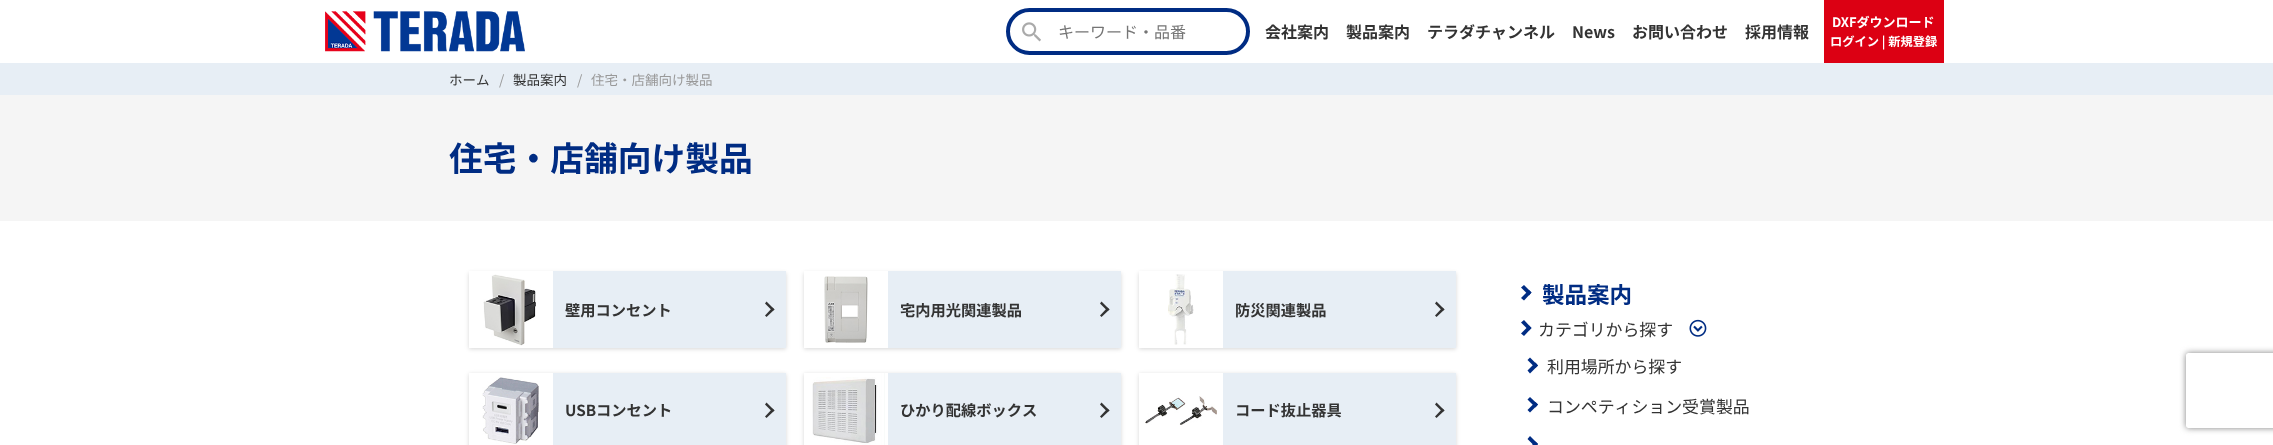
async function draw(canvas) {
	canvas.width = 2273;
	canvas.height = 445;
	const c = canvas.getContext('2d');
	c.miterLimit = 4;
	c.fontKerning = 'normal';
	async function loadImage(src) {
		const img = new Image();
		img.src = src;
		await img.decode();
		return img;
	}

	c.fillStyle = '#fff';
	c.fillRect(0, 0, 2273, 445);
	c.drawImage(await loadImage('img1.png'), 325, 11, 200, 41);
	c.beginPath();
	c.roundRect(1008, 10, 240, 43, 21.5);
	c.strokeStyle = '#002c83';
	c.lineWidth = 4;
	c.stroke();
	c.drawImage(await loadImage('img2.png'), 1022, 22, 19, 20);
	c.font = '16px Noto Sans JP';
	c.fillStyle = '#757575';
	c.fillText('キーワード・品番', 1058, 38);
	c.font = 'bold 16px Noto Sans JP';
	c.fillStyle = '#333';
	for (const [text, x, y] of [
		['会社案内', 1265, 38],
		['製品案内', 1346, 38],
		['テラダチャンネル', 1427, 38],
		['News', 1572, 38],
		['お問い合わせ', 1632, 38],
		['採用情報', 1745, 38],
	]) {
		c.fillText(text, x, y);
	}
	c.fillStyle = '#dc0013';
	c.fillRect(1824, 0, 120, 63);
	c.font = 'bold 13px Noto Sans JP';
	c.fillStyle = '#fff';
	c.fillText('DXFダウンロード', 1832, 27);
	c.font = 'bold 12.25px Noto Sans JP';
	c.fillText('ログイン | 新規登録', 1830, 46);
	c.fillStyle = '#e7eef5';
	c.fillRect(0, 63, 2273, 32);
	c.font = '13.5px Noto Sans JP';
	c.fillStyle = '#333';
	c.fillText('ホーム', 449, 85);
	c.fillStyle = '#999';
	c.fillText('/', 499, 85);
	c.fillStyle = '#333';
	c.fillText('製品案内', 513, 85);
	c.fillStyle = '#999';
	c.fillText('/', 577, 85);
	c.fillText('住宅・店舗向け製品', 591, 85);
	c.fillStyle = '#f5f5f5';
	c.fillRect(0, 95, 2273, 126);
	c.font = 'bold 33.75px Noto Sans JP';
	c.fillStyle = '#002c83';
	c.fillText('住宅・店舗向け製品', 449, 171);
	c.fillStyle = '#00000029';
	c.filter = 'blur(2px)';
	c.beginPath();
	c.rect(469, 273, 317, 76);
	c.fill();
	c.filter = 'none';
	c.fillStyle = '#e7eef5';
	c.fillRect(553, 271, 233, 77);
	c.fillStyle = '#fff';
	c.fillRect(469, 271, 84, 77);
	c.drawImage(await loadImage('img3.png'), 483, 274, 53, 72);
	c.font = 'bold 15.25px Noto Sans JP';
	c.fillStyle = '#333';
	c.fillText('壁用コンセント', 565, 316);
	c.beginPath();
	c.moveTo(766.5, 301.5);
	c.lineTo(774.5, 309.5);
	c.lineTo(772.5, 311);
	c.lineTo(765, 303.5);
	c.closePath();
	c.fill();
	c.beginPath();
	c.moveTo(772.5, 307.5);
	c.lineTo(774.5, 309.5);
	c.lineTo(766.5, 317);
	c.lineTo(765, 315.5);
	c.closePath();
	c.fill();
	c.fillStyle = '#00000029';
	c.filter = 'blur(2px)';
	c.beginPath();
	c.rect(804, 273, 317, 76);
	c.fill();
	c.filter = 'none';
	c.fillStyle = '#e7eef5';
	c.fillRect(888, 271, 233, 77);
	c.fillStyle = '#fff';
	c.fillRect(804, 271, 84, 77);
	c.drawImage(await loadImage('img4.png'), 824, 276, 44, 67);
	c.fillStyle = '#333';
	c.fillText('宅内用光関連製品', 900, 316);
	c.beginPath();
	c.moveTo(1101.5, 301.5);
	c.lineTo(1109.5, 309.5);
	c.lineTo(1107.5, 311);
	c.lineTo(1100, 303.5);
	c.closePath();
	c.fill();
	c.beginPath();
	c.moveTo(1107.5, 307.5);
	c.lineTo(1109.5, 309.5);
	c.lineTo(1101.5, 317);
	c.lineTo(1100, 315.5);
	c.closePath();
	c.fill();
	c.fillStyle = '#00000029';
	c.filter = 'blur(2px)';
	c.beginPath();
	c.rect(1139, 273, 317, 76);
	c.fill();
	c.filter = 'none';
	c.fillStyle = '#e7eef5';
	c.fillRect(1223, 271, 233, 77);
	c.fillStyle = '#fff';
	c.fillRect(1139, 271, 84, 77);
	c.drawImage(await loadImage('img5.png'), 1168, 274, 26, 71);
	c.fillStyle = '#333';
	c.fillText('防災関連製品', 1235, 316);
	c.beginPath();
	c.moveTo(1436.5, 301.5);
	c.lineTo(1444.5, 309.5);
	c.lineTo(1442.5, 311);
	c.lineTo(1435, 303.5);
	c.closePath();
	c.fill();
	c.beginPath();
	c.moveTo(1442.5, 307.5);
	c.lineTo(1444.5, 309.5);
	c.lineTo(1436.5, 317);
	c.lineTo(1435, 315.5);
	c.closePath();
	c.fill();
	c.fillStyle = '#00000029';
	c.filter = 'blur(2px)';
	c.beginPath();
	c.rect(469, 374, 317, 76);
	c.fill();
	c.filter = 'none';
	c.fillStyle = '#e7eef5';
	c.fillRect(553, 373, 233, 72);
	c.fillStyle = '#fff';
	c.fillRect(469, 373, 84, 72);
	c.drawImage(await loadImage('img6.png'), 482, 377, 57, 67);
	c.fillStyle = '#333';
	c.fillText('USBコンセント', 565, 416);
	c.beginPath();
	c.moveTo(766.5, 402.5);
	c.lineTo(774.5, 410.5);
	c.lineTo(772.5, 412);
	c.lineTo(765, 404.5);
	c.closePath();
	c.fill();
	c.beginPath();
	c.moveTo(772.5, 408.5);
	c.lineTo(774.5, 410.5);
	c.lineTo(766.5, 418);
	c.lineTo(765, 416.5);
	c.closePath();
	c.fill();
	c.fillStyle = '#00000029';
	c.filter = 'blur(2px)';
	c.beginPath();
	c.rect(804, 374, 317, 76);
	c.fill();
	c.filter = 'none';
	c.fillStyle = '#e7eef5';
	c.fillRect(888, 373, 233, 72);
	c.fillStyle = '#fff';
	c.fillRect(804, 373, 84, 72);
	c.drawImage(await loadImage('img7.png'), 812, 373, 73, 72);
	c.fillStyle = '#333';
	c.fillText('ひかり配線ボックス', 900, 416);
	c.beginPath();
	c.moveTo(1101.5, 402.5);
	c.lineTo(1109.5, 410.5);
	c.lineTo(1107.5, 412);
	c.lineTo(1100, 404.5);
	c.closePath();
	c.fill();
	c.beginPath();
	c.moveTo(1107.5, 408.5);
	c.lineTo(1109.5, 410.5);
	c.lineTo(1101.5, 418);
	c.lineTo(1100, 416.5);
	c.closePath();
	c.fill();
	c.fillStyle = '#00000029';
	c.filter = 'blur(2px)';
	c.beginPath();
	c.rect(1139, 374, 317, 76);
	c.fill();
	c.filter = 'none';
	c.fillStyle = '#e7eef5';
	c.fillRect(1223, 373, 233, 72);
	c.fillStyle = '#fff';
	c.fillRect(1139, 373, 84, 72);
	c.drawImage(await loadImage('img8.png'), 1145, 396, 72, 29);
	c.fillStyle = '#333';
	c.fillText('コード抜止器具', 1235, 416);
	c.beginPath();
	c.moveTo(1436.5, 402.5);
	c.lineTo(1444.5, 410.5);
	c.lineTo(1442.5, 412);
	c.lineTo(1435, 404.5);
	c.closePath();
	c.fill();
	c.beginPath();
	c.moveTo(1442.5, 408.5);
	c.lineTo(1444.5, 410.5);
	c.lineTo(1436.5, 418);
	c.lineTo(1435, 416.5);
	c.closePath();
	c.fill();
	c.fillStyle = '#002c83';
	c.beginPath();
	c.moveTo(1524, 285);
	c.lineTo(1531.5, 292.5);
	c.lineTo(1529, 295.5);
	c.lineTo(1521, 287.5);
	c.closePath();
	c.fill();
	c.beginPath();
	c.moveTo(1529, 290);
	c.lineTo(1531.5, 292.5);
	c.lineTo(1524, 300.5);
	c.lineTo(1521, 298);
	c.closePath();
	c.fill();
	c.font = 'bold 22.5px Noto Sans JP';
	c.fillText('製品案内', 1542, 303);
	c.beginPath();
	c.moveTo(1524, 320);
	c.lineTo(1531.5, 328);
	c.lineTo(1529, 330.5);
	c.lineTo(1521, 322.5);
	c.closePath();
	c.fill();
	c.beginPath();
	c.moveTo(1529, 325.5);
	c.lineTo(1531.5, 328);
	c.lineTo(1524, 336);
	c.lineTo(1521, 333.5);
	c.closePath();
	c.fill();
	c.font = '16.9px Noto Sans JP';
	c.fillStyle = '#333';
	c.fillText('カテゴリから探す', 1538, 336);
	c.drawImage(await loadImage('img9.png'), 1689, 319, 18, 18);
	c.fillStyle = '#002c83';
	c.beginPath();
	c.moveTo(1530, 357.5);
	c.lineTo(1538, 365.5);
	c.lineTo(1535.5, 368);
	c.lineTo(1527.5, 360);
	c.closePath();
	c.fill();
	c.beginPath();
	c.moveTo(1535.5, 362.5);
	c.lineTo(1538, 365.5);
	c.lineTo(1530, 373.5);
	c.lineTo(1527.5, 370.5);
	c.closePath();
	c.fill();
	c.fillStyle = '#333';
	c.fillText('利用場所から探す', 1547, 373);
	c.fillStyle = '#002c83';
	c.beginPath();
	c.moveTo(1530, 397);
	c.lineTo(1538, 404.5);
	c.lineTo(1535.5, 407.5);
	c.lineTo(1527.5, 399.5);
	c.closePath();
	c.fill();
	c.beginPath();
	c.moveTo(1535.5, 402);
	c.lineTo(1538, 404.5);
	c.lineTo(1530, 412.5);
	c.lineTo(1527.5, 410);
	c.closePath();
	c.moveTo(1530, 436);
	c.lineTo(1538, 444);
	c.lineTo(1535.5, 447);
	c.lineTo(1527.5, 439);
	c.closePath();
	c.fill();
	c.fillStyle = '#333';
	c.fillText('コンペティション受賞製品', 1547, 413);
	c.fillStyle = '#002c83';
	c.beginPath();
	c.moveTo(1535.5, 441.5);
	c.lineTo(1538, 444);
	c.lineTo(1530, 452);
	c.lineTo(1527.5, 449.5);
	c.closePath();
	c.fill();
	c.save();
	c.beginPath();
	c.moveTo(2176, 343);
	c.lineTo(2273, 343);
	c.lineTo(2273, 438);
	c.lineTo(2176, 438);
	c.closePath();
	c.moveTo(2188.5, 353);
	c.lineTo(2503.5, 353);
	c.bezierCurveTo(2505, 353, 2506, 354, 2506, 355.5);
	c.lineTo(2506, 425.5);
	c.bezierCurveTo(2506, 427, 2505, 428, 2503.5, 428);
	c.lineTo(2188.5, 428);
	c.bezierCurveTo(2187, 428, 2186, 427, 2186, 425.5);
	c.lineTo(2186, 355.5);
	c.bezierCurveTo(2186, 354, 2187, 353, 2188.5, 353);
	c.closePath();
	c.clip('evenodd');
	c.fillStyle = '#808080';
	c.filter = 'blur(3px)';
	c.beginPath();
	c.roundRect(2186, 353, 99, 75, 2.5);
	c.fill();
	c.filter = 'none';
	c.restore();
}

draw(document.querySelector('canvas'));
